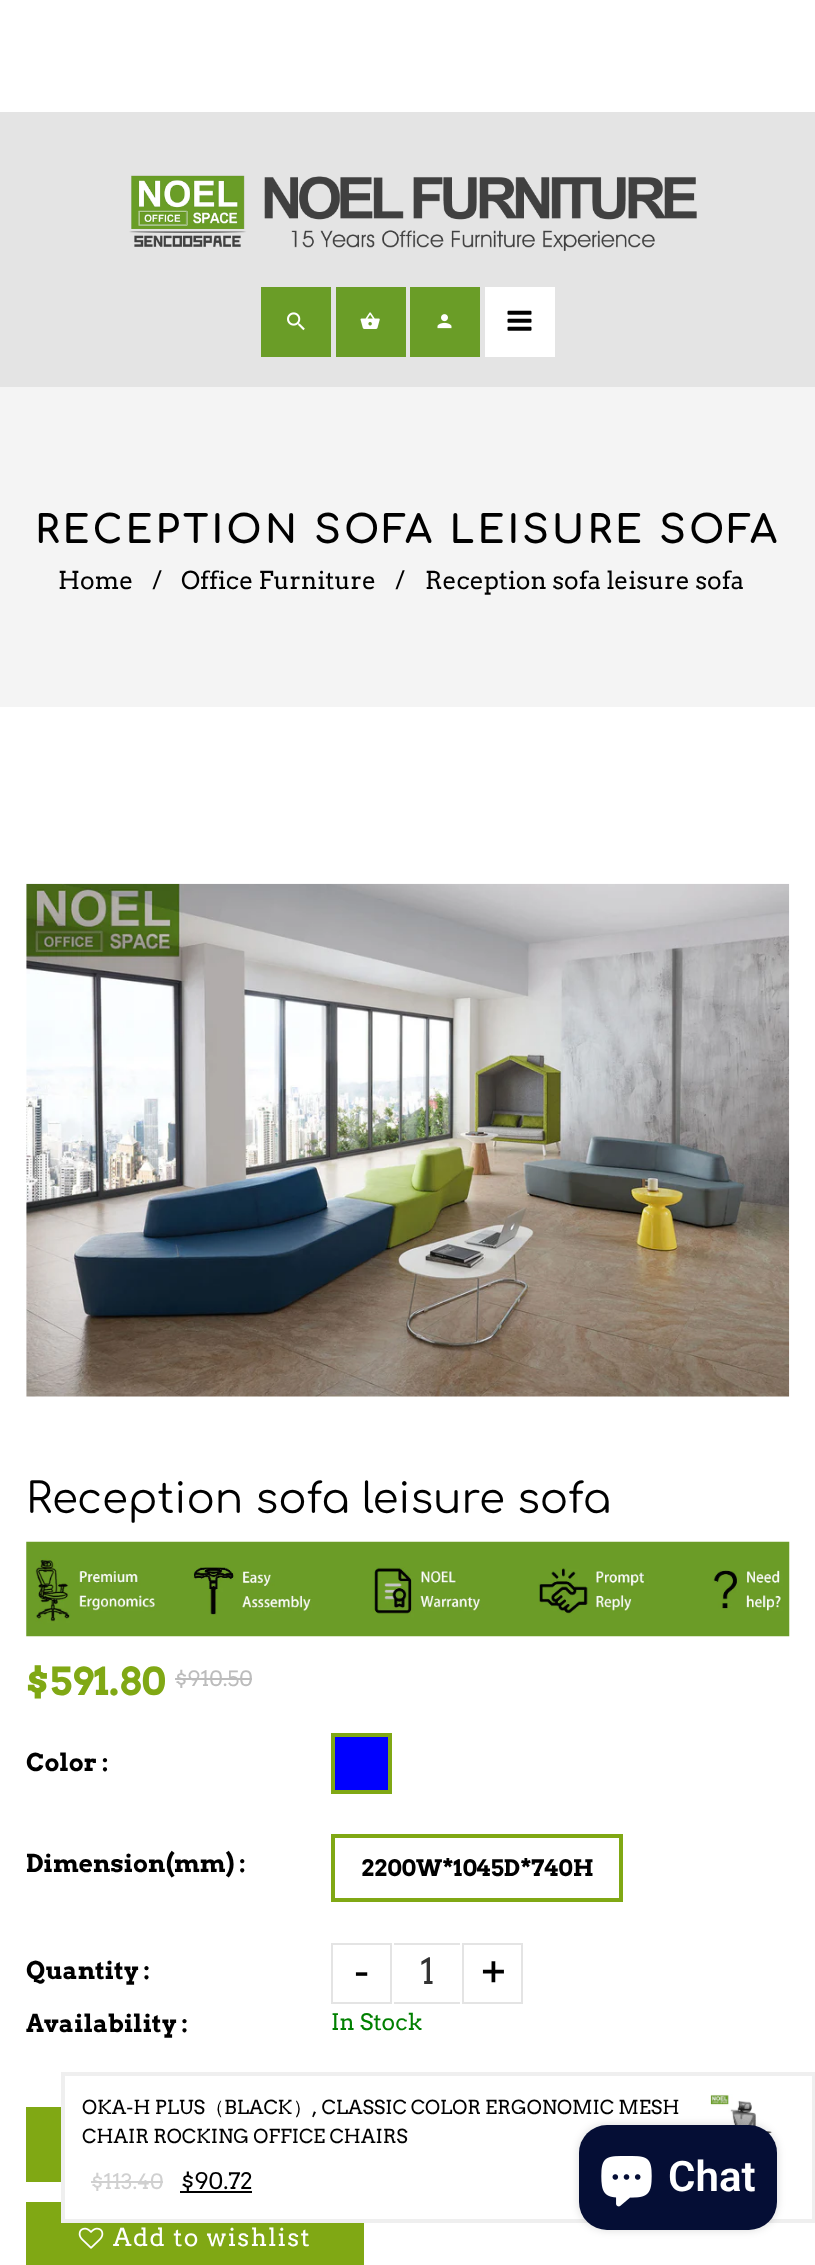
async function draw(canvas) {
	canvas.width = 815;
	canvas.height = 2265;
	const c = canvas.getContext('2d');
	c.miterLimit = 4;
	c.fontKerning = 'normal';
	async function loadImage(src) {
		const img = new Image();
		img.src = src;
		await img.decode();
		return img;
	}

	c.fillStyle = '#fff';
	c.fillRect(0, 0, 815, 2265);
	c.fillStyle = '#e4e4e4';
	c.fillRect(0, 112, 815, 275);
	c.drawImage(await loadImage('img1.png'), 129, 175, 568, 76);
	c.fillStyle = '#6a9d27';
	c.fillRect(261, 287, 70, 70);
	c.drawImage(await loadImage('img2.png'), 287, 312, 18, 19);
	c.fillRect(336, 287, 70, 70);
	c.drawImage(await loadImage('img3.png'), 360, 312, 20, 17);
	c.fillRect(410, 287, 70, 70);
	c.drawImage(await loadImage('img4.png'), 437, 314, 15, 15);
	c.fillStyle = '#fff';
	c.fillRect(485, 287, 70, 70);
	c.drawImage(await loadImage('img5.png'), 507, 310, 25, 21);
	c.fillStyle = '#f4f4f4';
	c.fillRect(0, 387, 815, 320);
	c.letterSpacing = '3.1px';
	c.font = 'bold 38.5px Comfortaa';
	c.fillStyle = '#000';
	c.fillText('RECEPTION SOFA LEISURE SOFA', 35, 543);
	c.letterSpacing = '0px';
	c.font = '24.5px Arvo';
	for (const [text, x, y] of [
		['Home', 58, 589],
		['/', 152, 589],
		['Office Furniture', 181, 589],
		['/', 395, 589],
		['Reception sofa leisure sofa', 425, 589],
	]) {
		c.fillText(text, x, y);
	}
	c.drawImage(await loadImage('img6.png'), 26, 883, 764, 514);
	c.font = '42px Comfortaa';
	c.fillText('Reception sofa leisure sofa', 26, 1513);
	c.drawImage(await loadImage('img7.png'), 26, 1541, 764, 96);
	c.font = 'bold 38.5px Arvo';
	c.fillStyle = '#80a814';
	c.fillText('$591.80', 26, 1695);
	c.font = '21px Arvo';
	c.fillStyle = '#bcbcbc';
	c.fillText('$910.50', 175, 1686);
	c.fillRect(175, 1678, 77, 2);
	c.font = 'bold 24.5px Arvo';
	c.fillStyle = '#000';
	c.fillText('Color :', 26, 1771);
	c.fillStyle = '#00f';
	c.beginPath();
	c.rect(333, 1735, 57, 57);
	c.fill();
	c.strokeStyle = '#80a814';
	c.lineWidth = 4;
	c.stroke();
	c.fillStyle = '#000';
	c.fillText('Dimension(mm) :', 26, 1872);
	c.strokeRect(333, 1836, 288, 64);
	c.font = 'bold 22.75px Arvo';
	c.fillText('2200W*1045D*740H', 361, 1876);
	c.font = 'bold 24.5px Arvo';
	c.fillText('Quantity :', 26, 1979);
	c.strokeStyle = '#e4e4e4';
	c.lineWidth = 2;
	c.strokeRect(332, 1944, 59, 59);
	c.font = '42px Arvo';
	c.fillText('-', 354, 1986);
	c.fillStyle = '#e4e4e4';
	c.fillRect(394, 1943, 66, 2);
	c.fillRect(394, 2002, 66, 2);
	c.font = '35px Arvo';
	c.fillStyle = '#333';
	c.fillText('1', 420, 1984);
	c.strokeRect(463, 1944, 59, 59);
	c.font = '42px Arvo';
	c.fillStyle = '#000';
	c.fillText('+', 480, 1986);
	c.font = 'bold 24.5px Arvo';
	c.fillText('Availability :', 26, 2032);
	c.font = '22.75px Arvo';
	c.fillStyle = '#008000';
	c.fillText('In Stock', 331, 2030);
	c.fillStyle = '#80a814';
	c.fillRect(26, 2107, 35, 75);
	c.fillRect(26, 2202, 338, 63);
	c.drawImage(await loadImage('img8.png'), 78, 2227, 26, 22);
	c.letterSpacing = '1.5px';
	c.font = '24.5px Arvo';
	c.fillStyle = '#fff';
	c.fillText('Add to wishlist', 113, 2246);
	c.fillRect(65, 2202, 299, 17);
	c.strokeStyle = '#efefef';
	c.lineWidth = 4;
	c.strokeRect(63, 2074, 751, 147);
	c.letterSpacing = '0px';
	c.font = '19.25px Arvo';
	c.fillStyle = '#000';
	c.fillText('OKA-H PLUS', 82, 2114);
	c.font = '500 19.25px WenQuanYi Zen Hei';
	c.fillText('（', 205, 2114);
	c.font = '19.25px Arvo';
	c.fillText('BLACK', 224, 2114);
	c.font = '500 19.25px WenQuanYi Zen Hei';
	c.fillText('）', 293, 2114);
	c.font = '19.25px Arvo';
	c.fillText(', CLASSIC COLOR ERGONOMIC MESH', 312, 2114);
	c.fillText('CHAIR ROCKING OFFICE CHAIRS', 82, 2143);
	c.drawImage(await loadImage('img9.png'), 710, 2094, 65, 49);
	c.font = '21px Arvo';
	c.fillStyle = '#d0d0d0';
	c.fillText('$113.40', 91, 2189);
	c.fillRect(91, 2181, 72, 2);
	c.fillStyle = '#000';
	c.fillRect(180, 2191, 72, 2);
	c.font = '22.75px Arvo';
	c.fillText('$90.72', 181, 2189);
	c.fillStyle = '#00000026';
	c.filter = 'blur(4.5px)';
	c.beginPath();
	c.roundRect(579, 2125, 198, 105, 28);
	c.fill();
	c.filter = 'none';
	c.fillStyle = '#050e35';
	c.beginPath();
	c.roundRect(579, 2125, 198, 105, 28);
	c.fill();
	c.drawImage(await loadImage('img10.png'), 601, 2156, 51, 51);
	c.font = '600 42px Roboto';
	c.fillStyle = '#fff';
	c.fillText('Chat', 668, 2191);
}

draw(document.querySelector('canvas'));
